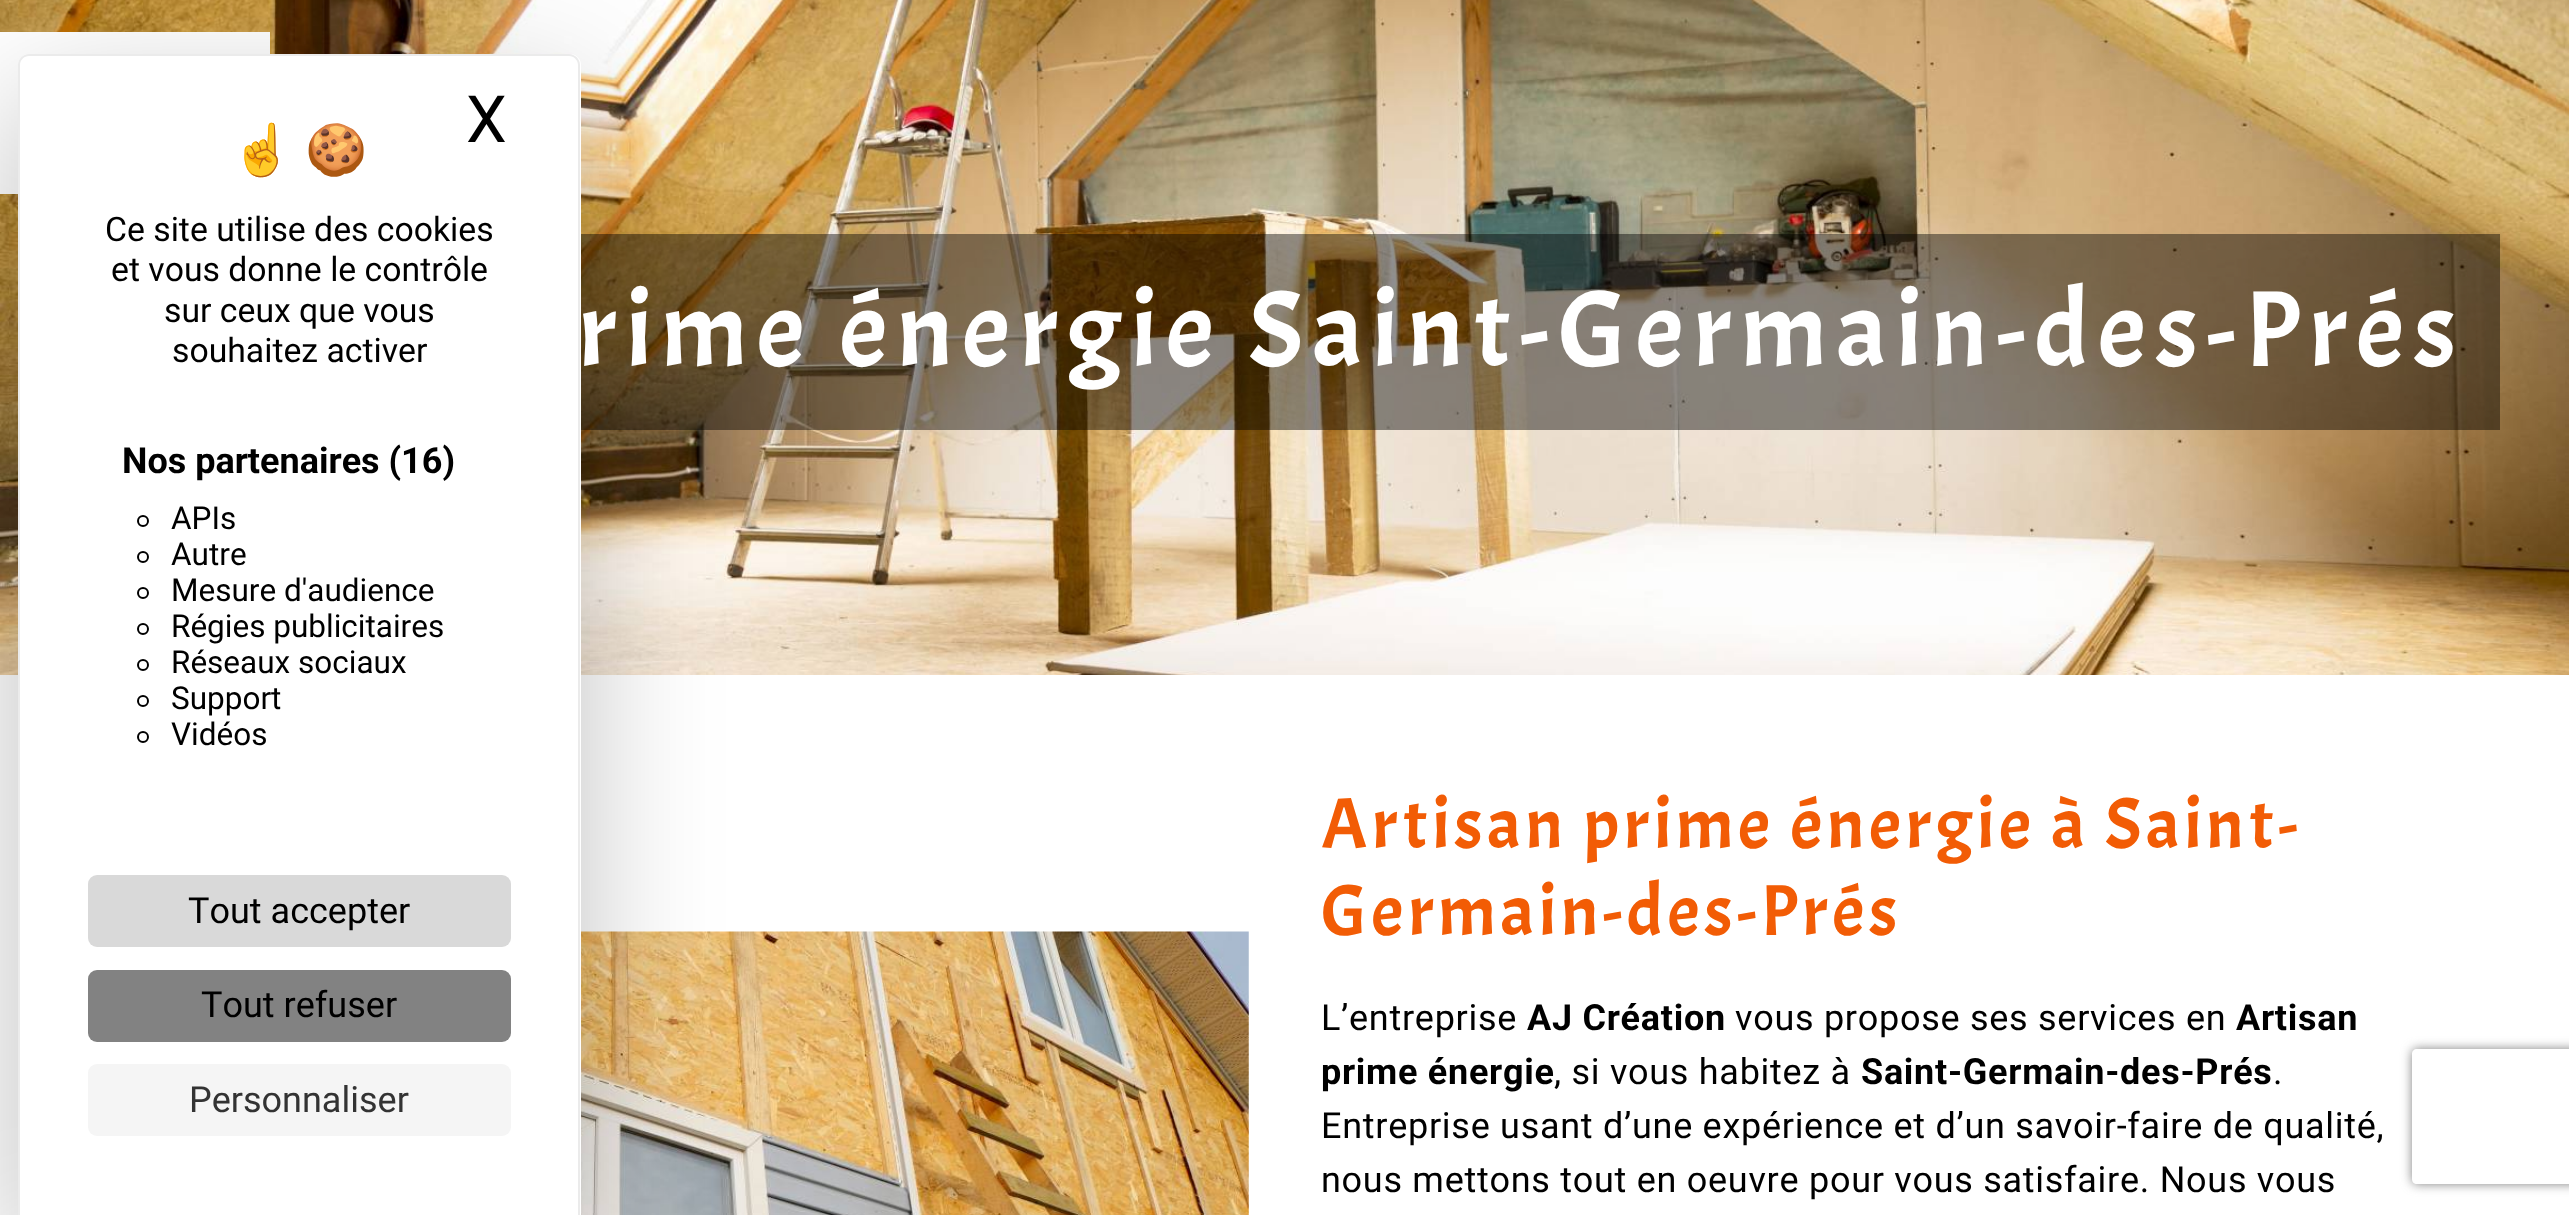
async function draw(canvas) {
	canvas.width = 2569;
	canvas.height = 1215;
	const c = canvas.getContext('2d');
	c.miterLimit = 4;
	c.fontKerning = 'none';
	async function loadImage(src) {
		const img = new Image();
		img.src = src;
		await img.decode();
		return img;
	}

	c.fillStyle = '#fff';
	c.fillRect(0, 0, 2569, 1215);
	c.drawImage(await loadImage('img1.png'), 0, 0, 2569, 675);
	c.fillRect(0, 32, 270, 162);
	c.fillStyle = '#0000006e';
	c.fillRect(581, 234, 1919, 196);
	c.drawImage(await loadImage('img2.png'), 581, 931, 668, 284);
	c.fillStyle = '#00000040';
	c.filter = 'blur(67.5px)';
	c.beginPath();
	c.roundRect(18, 99, 563, 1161, 11);
	c.fill();
	c.filter = 'none';
	c.fillStyle = '#fff';
	c.beginPath();
	c.roundRect(18, 54, 563, 1161, [11, 11, 0, 0]);
	c.fill();
	c.fillStyle = '#ebebeb';
	c.beginPath();
	c.moveTo(29, 54);
	c.lineTo(569, 54);
	c.bezierCurveTo(575, 54, 580, 59, 580, 65);
	c.lineTo(580, 1215);
	c.lineTo(18, 1215);
	c.lineTo(18, 65);
	c.bezierCurveTo(18, 59, 23, 54, 29, 54);
	c.closePath();
	c.moveTo(29, 56);
	c.lineTo(569, 56);
	c.bezierCurveTo(574, 56, 578, 60, 578, 65);
	c.lineTo(578, 1215);
	c.lineTo(20, 1215);
	c.lineTo(20, 65);
	c.bezierCurveTo(20, 60, 24, 56, 29, 56);
	c.closePath();
	c.fill('evenodd');
	c.font = '50px Noto Color Emoji';
	c.fillStyle = '#000';
	c.fillText('☝️', 231, 167);
	c.fillText('🍪', 305, 167);
	c.font = '65px Roboto';
	c.fillText('X', 466, 142);
	c.font = '33.75px Roboto';
	for (const [text, x, y] of [
		['Ce site utilise des cookies', 105, 241],
		['et vous donne le contrôle', 111, 281],
		['sur ceux que vous', 164, 322],
		['souhaitez activer', 172, 362],
	]) {
		c.fillText(text, x, y);
	}
	c.font = 'bold 36px Roboto';
	c.fillText('Nos partenaires (16)', 122, 473);
	c.beginPath();
	c.arc(143, 521, 5, 0, 2 * Math.PI);
	c.strokeStyle = '#000';
	c.lineWidth = 2;
	c.stroke();
	c.font = '31.5px Roboto';
	c.fillText('APIs', 171, 529);
	c.beginPath();
	c.arc(143, 557, 5, 0, 2 * Math.PI);
	c.stroke();
	c.fillText('Autre', 171, 565);
	c.beginPath();
	c.arc(143, 593, 5, 0, 2 * Math.PI);
	c.stroke();
	c.fillText('Mesure d\'audience', 171, 601);
	c.beginPath();
	c.arc(143, 629, 5, 0, 2 * Math.PI);
	c.stroke();
	c.fillText('Régies publicitaires', 171, 637);
	c.beginPath();
	c.arc(143, 665, 5, 0, 2 * Math.PI);
	c.stroke();
	c.fillText('Réseaux sociaux', 171, 673);
	c.beginPath();
	c.arc(143, 701, 5, 0, 2 * Math.PI);
	c.stroke();
	c.fillText('Support', 171, 709);
	c.beginPath();
	c.arc(143, 737, 5, 0, 2 * Math.PI);
	c.stroke();
	c.fillText('Vidéos', 171, 745);
	c.fillStyle = '#d9d9d9';
	c.beginPath();
	c.roundRect(88, 875, 423, 72, 9);
	c.fill();
	c.font = '36px Roboto';
	c.fillStyle = '#000';
	c.fillText('Tout accepter', 188, 923);
	c.fillStyle = '#828282';
	c.beginPath();
	c.roundRect(88, 970, 423, 72, 9);
	c.fill();
	c.fillStyle = '#000';
	c.fillText('Tout refuser', 201, 1017);
	c.fillStyle = '#f5f5f5';
	c.beginPath();
	c.roundRect(88, 1064, 423, 72, 9);
	c.fill();
	c.fillStyle = '#333';
	c.fillText('Personnaliser', 189, 1112);
	c.letterSpacing = '9px';
	c.font = '108px Acme';
	c.fillStyle = '#fff';
	c.fillText('rime énergie Saint-Germain-des-Prés', 578, 366);
	c.letterSpacing = '4.5px';
	c.font = '72px Acme';
	c.fillStyle = '#f25c05';
	c.fillText('Artisan prime énergie à Saint-', 1321, 848);
	c.fillText('Germain-des-Prés', 1321, 935);
	c.letterSpacing = '0.72px';
	c.font = '36px Roboto';
	c.fillStyle = '#000';
	c.fillText('L’entreprise', 1321, 1030);
	c.font = 'bold 36px Roboto';
	c.fillText('AJ Création', 1527, 1030);
	c.font = '36px Roboto';
	c.fillText('vous propose ses services en', 1735, 1030);
	c.font = 'bold 36px Roboto';
	c.fillText('Artisan', 2236, 1030);
	c.fillText('prime énergie', 1321, 1084);
	c.font = '36px Roboto';
	c.fillText(', si vous habitez à', 1554, 1084);
	c.font = 'bold 36px Roboto';
	c.fillText('Saint-Germain-des-Prés', 1861, 1084);
	c.font = '36px Roboto';
	for (const [text, x, y] of [
		['.', 2273, 1084],
		['Entreprise usant d’une expérience et d’un savoir-faire de qualité,', 1321, 1138],
		['nous mettons tout en oeuvre pour vous satisfaire. Nous vous', 1321, 1192],
	]) {
		c.fillText(text, x, y);
	}
	c.save();
	c.beginPath();
	c.moveTo(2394, 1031);
	c.lineTo(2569, 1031);
	c.lineTo(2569, 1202);
	c.lineTo(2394, 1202);
	c.closePath();
	c.moveTo(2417, 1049);
	c.lineTo(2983, 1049);
	c.bezierCurveTo(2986, 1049, 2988, 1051, 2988, 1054);
	c.lineTo(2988, 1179);
	c.bezierCurveTo(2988, 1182, 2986, 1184, 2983, 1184);
	c.lineTo(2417, 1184);
	c.bezierCurveTo(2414, 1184, 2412, 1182, 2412, 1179);
	c.lineTo(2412, 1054);
	c.bezierCurveTo(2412, 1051, 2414, 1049, 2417, 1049);
	c.closePath();
	c.clip('evenodd');
	c.fillStyle = '#808080';
	c.filter = 'blur(5.5px)';
	c.beginPath();
	c.roundRect(2412, 1049, 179, 135, 5);
	c.fill();
	c.filter = 'none';
	c.restore();
}

draw(document.querySelector('canvas'));
